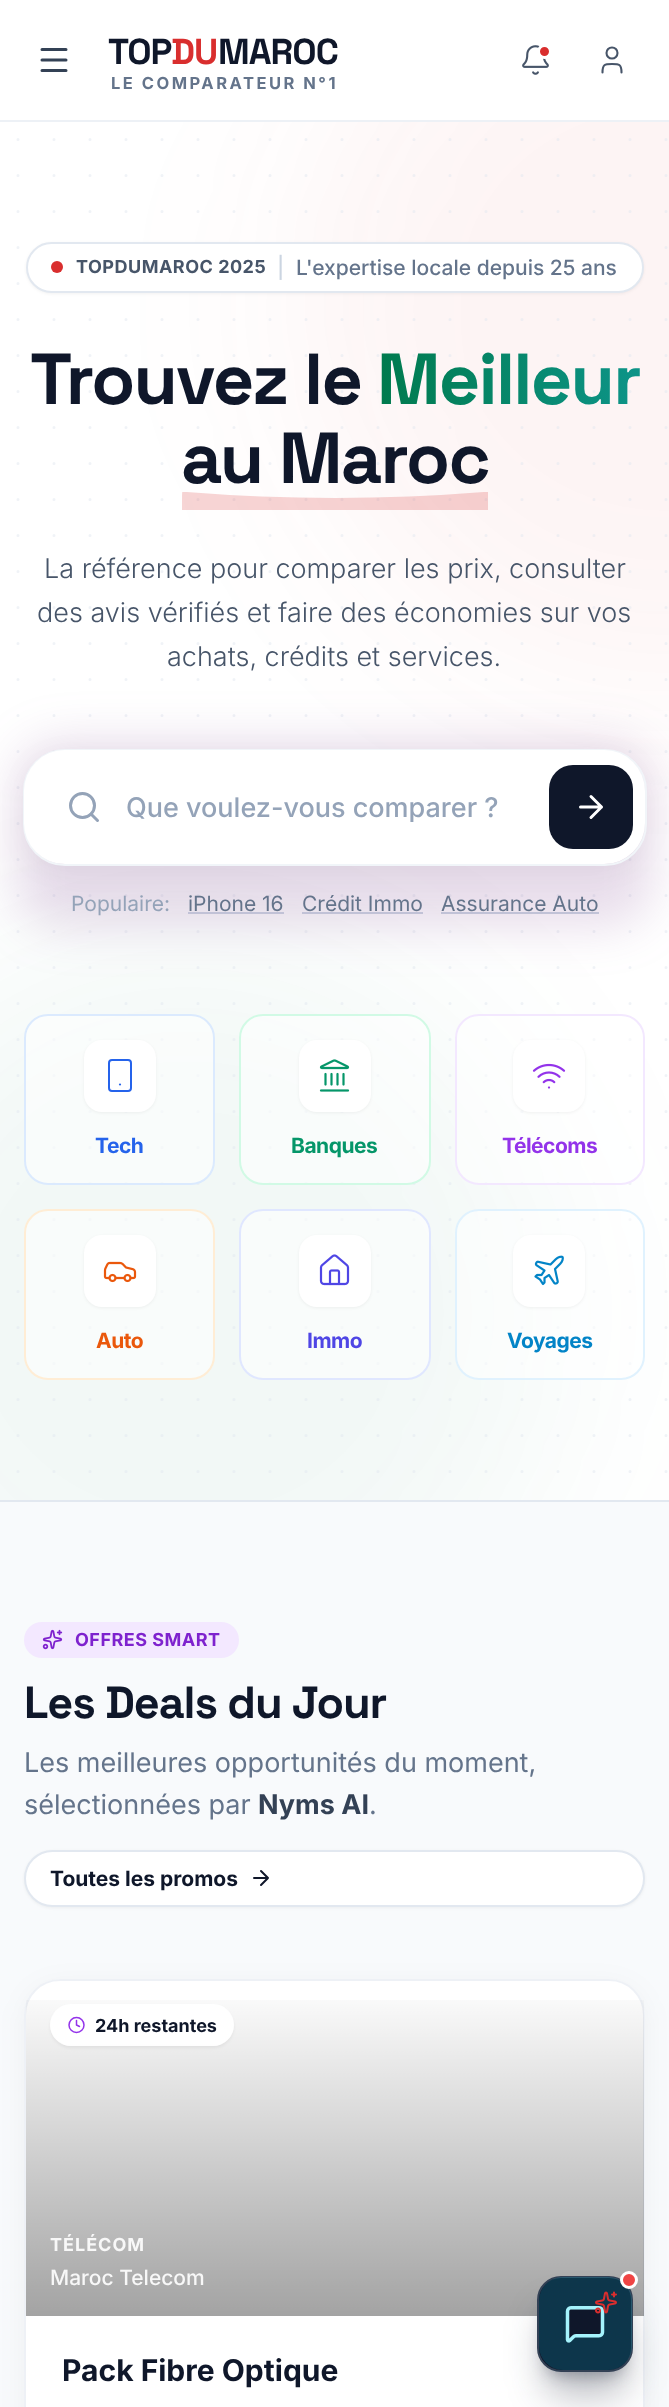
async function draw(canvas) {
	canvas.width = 669;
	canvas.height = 2407;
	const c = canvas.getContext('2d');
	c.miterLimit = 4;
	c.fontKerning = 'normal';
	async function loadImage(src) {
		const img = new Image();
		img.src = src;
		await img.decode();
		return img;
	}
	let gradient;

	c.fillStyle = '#f8fafc';
	c.fillRect(0, 0, 669, 2407);
	c.fillStyle = '#fff';
	c.fillRect(0, 122, 669, 1378);
	c.save();
	c.beginPath();
	c.rect(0, 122, 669, 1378);
	c.clip();
	c.fillStyle = '#d92e2e0d';
	c.filter = 'blur(96px)';
	c.beginPath();
	c.roundRect(294, -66, 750, 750, 375);
	c.fill();
	c.filter = 'none';
	c.restore();
	c.fillStyle = '#ffffffe6';
	c.fillRect(0, 0, 669, 120);
	c.fillStyle = '#edf1f6';
	c.fillRect(0, 120, 669, 2);
	c.beginPath();
	c.moveTo(42, 49.5);
	c.lineTo(66, 49.5);
	c.moveTo(42, 60);
	c.lineTo(66, 60);
	c.moveTo(42, 70.5);
	c.lineTo(66, 70.5);
	c.strokeStyle = '#334155';
	c.lineWidth = 3;
	c.lineCap = 'round';
	c.lineJoin = 'round';
	c.stroke();
	c.letterSpacing = '-1px';
	c.font = 'bold 36px Space Grotesk';
	c.fillStyle = '#0f172a';
	c.fillText('TOP', 108, 64);
	c.fillStyle = '#d92e2e';
	c.fillText('DU', 171, 64);
	c.fillStyle = '#0f172a';
	c.fillText('MAROC', 218, 64);
	c.letterSpacing = '2.5px';
	c.font = 'bold 16.5px Inter';
	c.fillStyle = '#64748b';
	c.fillText('LE COMPARATEUR N°1', 111, 89);
	c.drawImage(await loadImage('img1.png'), 522, 45, 27, 30);
	c.fillStyle = '#d92e2e';
	c.beginPath();
	c.arc(544.5, 51.5, 6, 0, 2 * Math.PI);
	c.fill();
	c.strokeStyle = '#fff';
	c.stroke();
	c.beginPath();
	c.moveTo(621.5, 72.5);
	c.bezierCurveTo(621.5, 64.5, 619.5, 64, 612, 64);
	c.bezierCurveTo(604.5, 64, 602.5, 64.5, 602.5, 72.5);
	c.strokeStyle = '#475569';
	c.lineWidth = 2.1;
	c.stroke();
	c.beginPath();
	c.arc(612, 53, 5.5, 0, 2 * Math.PI);
	c.stroke();
	c.fillStyle = '#e2e8f0';
	c.fillRect(0, 1500, 669, 2);
	c.fillStyle = '#f3e8ff';
	c.beginPath();
	c.roundRect(24, 1622, 215, 36, 18);
	c.fill();
	c.drawImage(await loadImage('img7.png'), 42, 1629, 21, 21);
	c.fillStyle = '#0000000d';
	c.filter = 'blur(1.5px)';
	c.beginPath();
	c.roundRect(24, 1851, 621, 57, 28.5);
	c.fill();
	c.filter = 'none';
	c.fillStyle = '#fff';
	c.beginPath();
	c.roundRect(25, 1851, 619, 55, 27.5);
	c.fill();
	c.strokeStyle = '#e2e8f0';
	c.lineWidth = 2;
	c.lineJoin = 'miter';
	c.stroke();
	c.beginPath();
	c.moveTo(254, 1878);
	c.lineTo(268, 1878);
	c.moveTo(261, 1871);
	c.lineTo(268, 1878);
	c.lineTo(261, 1885);
	c.strokeStyle = '#0f172a';
	c.lineJoin = 'round';
	c.stroke();
	c.save();
	c.beginPath();
	c.rect(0, 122, 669, 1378);
	c.clip();
	c.fillStyle = '#007a4d0d';
	c.filter = 'blur(96px)';
	c.beginPath();
	c.roundRect(-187, 938, 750, 750, 375);
	c.fill();
	c.filter = 'none';
	c.restore();
	c.beginPath();
	c.moveTo(18, 139.5);
	c.lineTo(18, 1471.8);
	c.strokeStyle = '#e2e8f080';
	c.lineWidth = 3;
	c.lineJoin = 'miter';
	c.setLineDash([0, 36]);
	c.stroke();
	c.beginPath();
	c.moveTo(54, 139.5);
	c.lineTo(54, 1471.8);
	c.stroke();
	c.beginPath();
	c.moveTo(90, 139.5);
	c.lineTo(90, 1471.8);
	c.stroke();
	c.beginPath();
	c.moveTo(126, 139.5);
	c.lineTo(126, 1471.8);
	c.stroke();
	c.beginPath();
	c.moveTo(162, 139.5);
	c.lineTo(162, 1471.8);
	c.stroke();
	c.beginPath();
	c.moveTo(198, 139.5);
	c.lineTo(198, 1471.8);
	c.stroke();
	c.beginPath();
	c.moveTo(234, 139.5);
	c.lineTo(234, 1471.8);
	c.stroke();
	c.beginPath();
	c.moveTo(270, 139.5);
	c.lineTo(270, 1471.8);
	c.stroke();
	c.beginPath();
	c.moveTo(306, 139.5);
	c.lineTo(306, 1471.8);
	c.stroke();
	c.beginPath();
	c.moveTo(342, 139.5);
	c.lineTo(342, 1471.8);
	c.stroke();
	c.beginPath();
	c.moveTo(378, 139.5);
	c.lineTo(378, 1471.8);
	c.stroke();
	c.beginPath();
	c.moveTo(414, 139.5);
	c.lineTo(414, 1471.8);
	c.stroke();
	c.beginPath();
	c.moveTo(450, 139.5);
	c.lineTo(450, 1471.8);
	c.stroke();
	c.beginPath();
	c.moveTo(486, 139.5);
	c.lineTo(486, 1471.8);
	c.stroke();
	c.beginPath();
	c.moveTo(522, 139.5);
	c.lineTo(522, 1471.8);
	c.stroke();
	c.beginPath();
	c.moveTo(558, 139.5);
	c.lineTo(558, 1471.8);
	c.stroke();
	c.beginPath();
	c.moveTo(594, 139.5);
	c.lineTo(594, 1471.8);
	c.stroke();
	c.beginPath();
	c.moveTo(630, 139.5);
	c.lineTo(630, 1471.8);
	c.stroke();
	c.beginPath();
	c.moveTo(666, 139.5);
	c.lineTo(666, 1471.8);
	c.stroke();
	c.fillStyle = '#0000000d';
	c.filter = 'blur(1.5px)';
	c.beginPath();
	c.roundRect(26, 243, 618, 51, 25.5);
	c.fill();
	c.filter = 'none';
	c.fillStyle = '#fff';
	c.beginPath();
	c.roundRect(27, 243, 616, 49, 24.5);
	c.fill();
	c.strokeStyle = '#e2e8f0';
	c.lineWidth = 2;
	c.setLineDash([]);
	c.stroke();
	c.fillStyle = '#d92e2e';
	c.beginPath();
	c.arc(57, 267, 6, 0, 2 * Math.PI);
	c.fill();
	c.letterSpacing = '0.5px';
	c.font = 'bold 18px Inter';
	c.fillStyle = '#475569';
	c.fillText('TOPDUMAROC 2025', 76, 273);
	c.letterSpacing = '0px';
	c.font = '500 21px Inter';
	c.fillStyle = '#cbd5e1';
	c.fillText('|', 277, 275);
	c.fillStyle = '#64748b';
	c.fillText('L\'expertise locale depuis 25 ans', 296, 275);
	c.letterSpacing = '-1.75px';
	c.font = 'bold 72px Space Grotesk';
	c.fillStyle = '#0f172a';
	c.fillText('Trouvez le', 30, 404);
	gradient = c.createLinearGradient(377, 380, 639, 380);
	gradient.addColorStop(0, '#007a4d');
	gradient.addColorStop(1, '#0d9488');
	c.fillStyle = gradient;
	c.fillText('Meilleur', 377, 404);
	c.fillStyle = '#0f172a';
	c.fillText('au Maroc', 181, 483);
	c.save();
	c.beginPath();
	c.rect(182, 492, 306, 18);
	c.clip();
	c.beginPath();
	c.moveTo(181.5, 501);
	c.bezierCurveTo(284, 509.5, 386.5, 509.5, 489, 501);
	c.strokeStyle = '#d92e2e33';
	c.lineWidth = 18.8;
	c.lineCap = 'butt';
	c.stroke();
	c.restore();
	c.letterSpacing = '0px';
	c.font = '300 27px Inter';
	c.fillStyle = '#475569';
	for (const [text, x, y] of [
		['La référence pour comparer les prix, consulter', 44, 578],
		['des avis vérifiés et faire des économies sur vos', 37, 622],
		['achats, crédits et services.', 167, 666],
	]) {
		c.fillText(text, x, y);
	}
	for (const [x, y, w, h, color] of [
		[188, 912, 96, 2, '#cbd5e1'],
		[302, 912, 121, 2, '#cbd5e1'],
		[441, 912, 158, 2, '#cbd5e1'],
	]) {
		c.fillStyle = color;
		c.fillRect(x, y, w, h);
	}
	c.fillStyle = '#8a559a33';
	c.filter = 'blur(24px)';
	c.beginPath();
	c.roundRect(15, 741, 639, 186, 48);
	c.fill();
	c.filter = 'none';
	c.fillStyle = '#0000000d';
	c.filter = 'blur(15px)';
	c.beginPath();
	c.roundRect(27, 759, 615, 108, 38);
	c.fill();
	c.filter = 'none';
	c.beginPath();
	c.roundRect(24, 750, 622, 115, 41);
	c.strokeStyle = '#f1f5f9';
	c.stroke();
	c.fillStyle = '#fff';
	c.beginPath();
	c.roundRect(24, 750, 621, 114, 41);
	c.fill();
	c.beginPath();
	c.moveTo(97.5, 820.5);
	c.lineTo(91, 814);
	c.strokeStyle = '#94a3b8';
	c.lineWidth = 3;
	c.lineJoin = 'round';
	c.stroke();
	c.beginPath();
	c.arc(82.5, 805.5, 12, 0, 2 * Math.PI);
	c.stroke();
	c.save();
	c.beginPath();
	c.rect(126, 791, 399, 31);
	c.clip();
	c.font = '500 27px Inter';
	c.fillStyle = '#94a3b8';
	c.fillText('Que voulez-vous comparer ?', 126, 817);
	c.restore();
	c.fillStyle = '#0f172a';
	c.beginPath();
	c.roundRect(549, 765, 84, 84, 24);
	c.fill();
	c.beginPath();
	c.moveTo(580.5, 807);
	c.lineTo(601.5, 807);
	c.moveTo(591, 796.5);
	c.lineTo(601.5, 807);
	c.lineTo(591, 817.5);
	c.strokeStyle = '#fff';
	c.stroke();
	c.font = '21px Inter';
	c.fillStyle = '#94a3b8';
	c.fillText('Populaire:', 71, 911);
	c.fillStyle = '#64748b';
	for (const [text, x, y] of [
		['iPhone 16', 188, 911],
		['Crédit Immo', 302, 911],
		['Assurance Auto', 441, 911],
	]) {
		c.fillText(text, x, y);
	}
	c.fillStyle = '#ffffff80';
	c.beginPath();
	c.roundRect(25, 1015, 189, 169, 23);
	c.fill();
	c.strokeStyle = '#dbeafe';
	c.lineWidth = 2;
	c.lineJoin = 'miter';
	c.stroke();
	c.fillStyle = '#0000000d';
	c.filter = 'blur(1.5px)';
	c.beginPath();
	c.roundRect(84, 1041, 72, 72, 18);
	c.fill();
	c.filter = 'none';
	c.fillStyle = '#fff';
	c.beginPath();
	c.roundRect(84, 1040, 72, 72, 18);
	c.fill();
	c.beginPath();
	c.roundRect(109, 1060, 22, 31, 3);
	c.strokeStyle = '#2563eb';
	c.stroke();
	c.beginPath();
	c.moveTo(120, 1084.5);
	c.lineTo(120, 1084.5);
	c.lineWidth = 2.2;
	c.lineJoin = 'round';
	c.stroke();
	c.letterSpacing = '-0.5px';
	c.font = 'bold 21px Inter';
	c.fillStyle = '#2563eb';
	c.fillText('Tech', 95, 1153);
	c.fillStyle = '#ffffff80';
	c.beginPath();
	c.roundRect(240, 1015, 190, 169, 23);
	c.fill();
	c.strokeStyle = '#d1fae5';
	c.lineWidth = 2;
	c.lineJoin = 'miter';
	c.stroke();
	c.fillStyle = '#0000000d';
	c.filter = 'blur(1.5px)';
	c.beginPath();
	c.roundRect(299, 1041, 72, 72, 18);
	c.fill();
	c.filter = 'none';
	c.fillStyle = '#fff';
	c.beginPath();
	c.roundRect(299, 1040, 72, 72, 18);
	c.fill();
	c.drawImage(await loadImage('img2.png'), 319, 1059, 31, 33);
	c.fillStyle = '#059669';
	c.fillText('Banques', 291, 1153);
	c.fillStyle = '#ffffff80';
	c.beginPath();
	c.roundRect(456, 1015, 188, 169, 23);
	c.fill();
	c.strokeStyle = '#f3e8ff';
	c.stroke();
	c.fillStyle = '#0000000d';
	c.filter = 'blur(1.5px)';
	c.beginPath();
	c.roundRect(513, 1041, 72, 72, 18);
	c.fill();
	c.filter = 'none';
	c.fillStyle = '#fff';
	c.beginPath();
	c.roundRect(513, 1040, 72, 72, 18);
	c.fill();
	c.drawImage(await loadImage('img3.png'), 532, 1063, 34, 26);
	c.fillStyle = '#9333ea';
	c.fillText('Télécoms', 502, 1153);
	c.fillStyle = '#ffffff80';
	c.beginPath();
	c.roundRect(25, 1210, 189, 169, 23);
	c.fill();
	c.strokeStyle = '#ffedd5';
	c.stroke();
	c.fillStyle = '#0000000d';
	c.filter = 'blur(1.5px)';
	c.beginPath();
	c.roundRect(84, 1236, 72, 72, 18);
	c.fill();
	c.filter = 'none';
	c.fillStyle = '#fff';
	c.beginPath();
	c.roundRect(84, 1235, 72, 72, 18);
	c.fill();
	c.drawImage(await loadImage('img4.png'), 103, 1261, 34, 22);
	c.fillStyle = '#ea580c';
	c.fillText('Auto', 96, 1348);
	c.fillStyle = '#ffffff80';
	c.beginPath();
	c.roundRect(240, 1210, 190, 169, 23);
	c.fill();
	c.strokeStyle = '#e0e7ff';
	c.stroke();
	c.fillStyle = '#0000000d';
	c.filter = 'blur(1.5px)';
	c.beginPath();
	c.roundRect(299, 1236, 72, 72, 18);
	c.fill();
	c.filter = 'none';
	c.fillStyle = '#fff';
	c.beginPath();
	c.roundRect(299, 1235, 72, 72, 18);
	c.fill();
	c.drawImage(await loadImage('img5.png'), 319, 1254, 31, 32);
	c.fillStyle = '#4f46e5';
	c.fillText('Immo', 307, 1348);
	c.fillStyle = '#ffffff80';
	c.beginPath();
	c.roundRect(456, 1210, 188, 169, 23);
	c.fill();
	c.strokeStyle = '#e0f2fe';
	c.stroke();
	c.fillStyle = '#0000000d';
	c.filter = 'blur(1.5px)';
	c.beginPath();
	c.roundRect(513, 1236, 72, 72, 18);
	c.fill();
	c.filter = 'none';
	c.fillStyle = '#fff';
	c.beginPath();
	c.roundRect(513, 1235, 72, 72, 18);
	c.fill();
	c.drawImage(await loadImage('img6.png'), 534, 1255, 30, 31);
	c.fillStyle = '#0284c7';
	c.fillText('Voyages', 507, 1348);
	c.letterSpacing = '0.5px';
	c.font = 'bold 18px Inter';
	c.fillStyle = '#7e22ce';
	c.fillText('OFFRES SMART', 75, 1646);
	c.letterSpacing = '-1.1px';
	c.font = 'bold 45px Space Grotesk';
	c.fillStyle = '#0f172a';
	c.fillText('Les Deals du Jour', 24, 1718);
	c.letterSpacing = '0px';
	c.font = '27px Inter';
	c.fillStyle = '#64748b';
	c.fillText('Les meilleures opportunités du moment,', 24, 1772);
	c.fillText('sélectionnées par', 24, 1814);
	c.font = 'bold 27px Inter';
	c.fillStyle = '#334155';
	c.fillText('Nyms AI', 258, 1814);
	c.font = '27px Inter';
	c.fillStyle = '#64748b';
	c.fillText('.', 369, 1814);
	c.font = 'bold 21px Inter';
	c.fillStyle = '#0f172a';
	c.fillText('Toutes les promos', 50, 1886);
	c.fillStyle = '#0000000d';
	c.filter = 'blur(15px)';
	c.beginPath();
	c.roundRect(27, 1988, 615, 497, 33);
	c.fill();
	c.filter = 'none';
	c.fillStyle = '#fff';
	c.beginPath();
	c.roundRect(24, 1979, 621, 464, 36);
	c.fill();
	c.beginPath();
	c.roundRect(25, 1980, 619, 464, 35);
	c.strokeStyle = '#e2e8f099';
	c.stroke();
	gradient = c.createLinearGradient(335, 2316, 335, 1980);
	gradient.addColorStop(0, '#0000005c');
	gradient.addColorStop(1, '#00000000');
	c.fillStyle = gradient;
	c.fillRect(26, 2000, 618, 316);
	c.save();
	c.beginPath();
	c.moveTo(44, 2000);
	c.lineTo(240, 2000);
	c.lineTo(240, 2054);
	c.lineTo(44, 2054);
	c.closePath();
	c.moveTo(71, 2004);
	c.lineTo(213, 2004);
	c.bezierCurveTo(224.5, 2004, 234, 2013.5, 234, 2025);
	c.bezierCurveTo(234, 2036.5, 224.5, 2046, 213, 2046);
	c.lineTo(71, 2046);
	c.bezierCurveTo(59.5, 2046, 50, 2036.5, 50, 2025);
	c.bezierCurveTo(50, 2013.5, 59.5, 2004, 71, 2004);
	c.closePath();
	c.clip('evenodd');
	c.fillStyle = '#0000000d';
	c.filter = 'blur(1.5px)';
	c.beginPath();
	c.roundRect(50, 2006, 184, 42, 21);
	c.fill();
	c.filter = 'none';
	c.restore();
	c.fillStyle = '#fffffff2';
	c.beginPath();
	c.roundRect(50, 2004, 184, 42, 21);
	c.fill();
	c.beginPath();
	c.moveTo(76.5, 2020.5);
	c.lineTo(76.5, 2025);
	c.lineTo(79.5, 2026.5);
	c.strokeStyle = '#9333ea';
	c.lineWidth = 1.5;
	c.lineJoin = 'round';
	c.stroke();
	c.beginPath();
	c.arc(76.5, 2025, 7.5, 0, 2 * Math.PI);
	c.stroke();
	c.font = 'bold 18px Inter';
	c.fillStyle = '#0f172a';
	c.fillText('24h restantes', 95, 2032);
	c.letterSpacing = '1px';
	c.fillStyle = '#f8f8f8';
	c.fillText('TÉLÉCOM', 50, 2251);
	c.letterSpacing = '0px';
	c.font = '500 21px Inter';
	c.fillText('Maroc Telecom', 50, 2285);
	c.font = 'bold 30px Inter';
	c.fillStyle = '#0f172a';
	c.fillText('Pack Fibre Optique', 62, 2381);
	c.fillStyle = '#0f172a4d';
	c.filter = 'blur(7.5px)';
	c.beginPath();
	c.roundRect(546, 2297, 78, 78, 15);
	c.fill();
	c.filter = 'none';
	c.filter = 'blur(19px)';
	c.beginPath();
	c.roundRect(545, 2313, 81, 81, 17);
	c.fill();
	c.filter = 'none';
	c.fillStyle = '#0f172a';
	c.beginPath();
	c.roundRect(538, 2277, 94, 94, 23);
	c.fill();
	c.strokeStyle = '#334155';
	c.lineWidth = 2;
	c.lineJoin = 'miter';
	c.stroke();
	c.fillStyle = '#06b6d433';
	c.beginPath();
	c.roundRect(539, 2277, 93, 93, 24);
	c.fill();
	c.fillStyle = '#ef4444';
	c.beginPath();
	c.arc(629, 2280, 7.5, 0, 2 * Math.PI);
	c.fill();
	c.strokeStyle = '#fff';
	c.lineWidth = 3;
	c.stroke();
	c.drawImage(await loadImage('img9.png'), 565, 2306, 40, 37);
	c.drawImage(await loadImage('img8.png'), 595, 2291, 22, 23);
}

draw(document.querySelector('canvas'));
